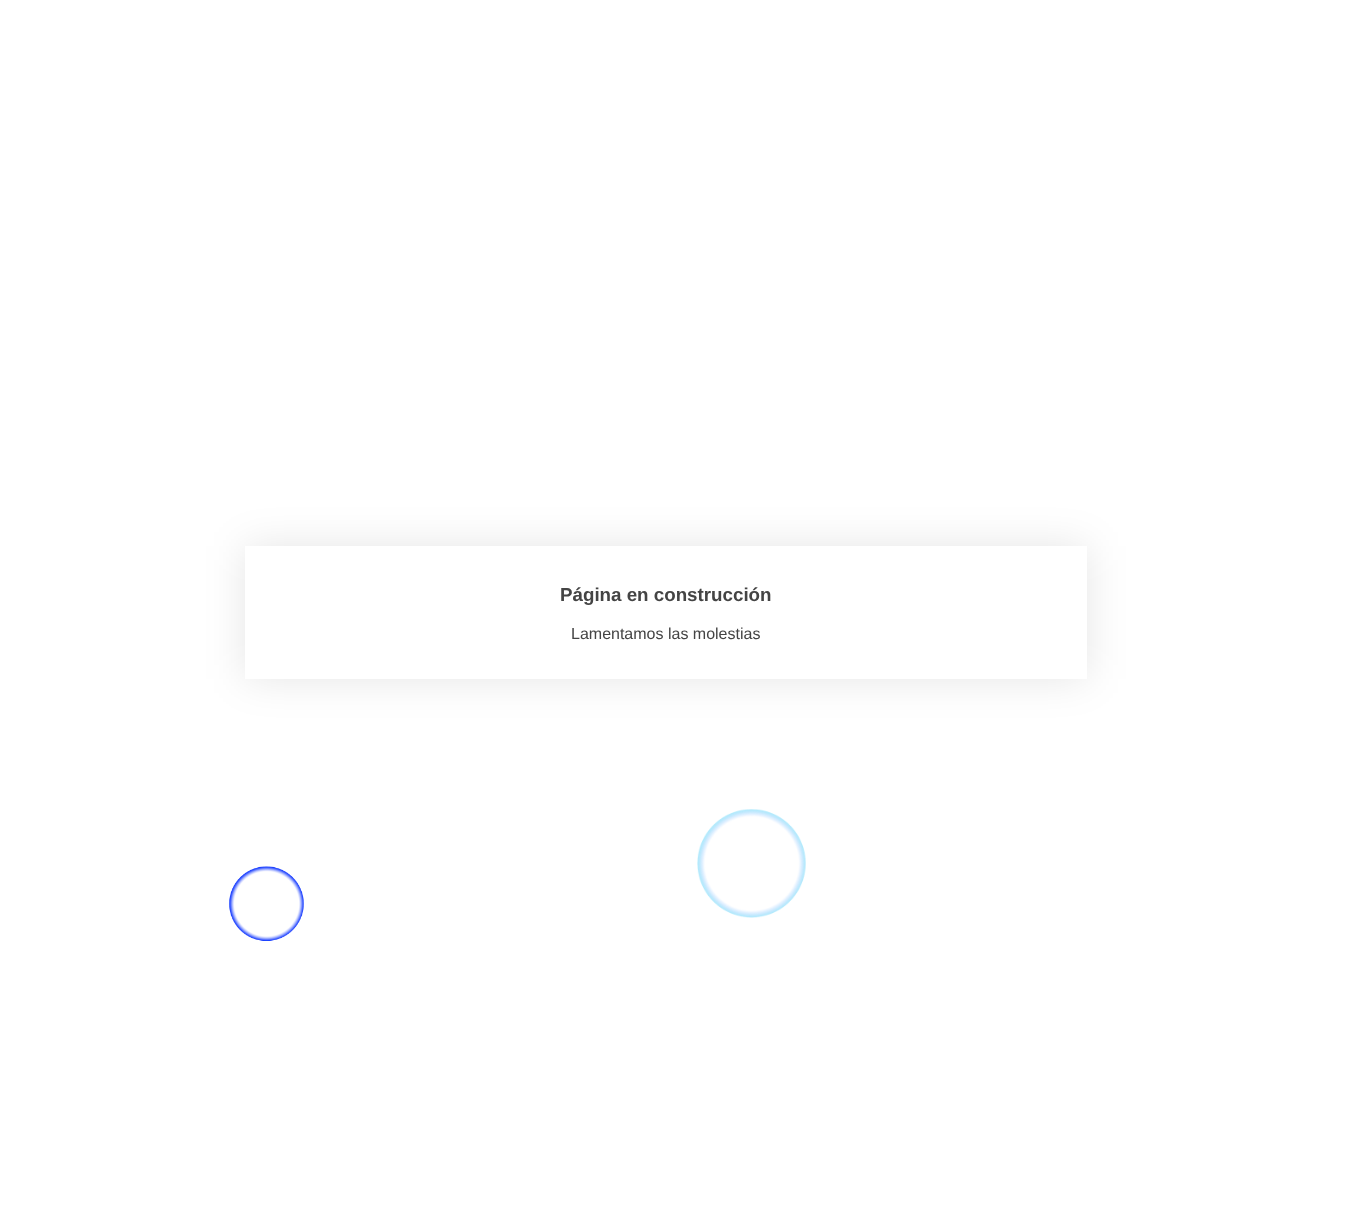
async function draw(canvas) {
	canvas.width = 1359;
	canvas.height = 1224;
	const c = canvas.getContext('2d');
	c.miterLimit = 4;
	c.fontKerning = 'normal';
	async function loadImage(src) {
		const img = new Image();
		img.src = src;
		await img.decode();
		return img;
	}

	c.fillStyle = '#fff';
	c.fillRect(0, 0, 1359, 1224);
	c.save();
	c.beginPath();
	c.moveTo(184, 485);
	c.lineTo(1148, 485);
	c.lineTo(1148, 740);
	c.lineTo(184, 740);
	c.closePath();
	c.moveTo(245, 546);
	c.lineTo(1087, 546);
	c.lineTo(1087, 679);
	c.lineTo(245, 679);
	c.closePath();
	c.clip('evenodd');
	c.fillStyle = '#0000001a';
	c.filter = 'blur(20px)';
	c.beginPath();
	c.rect(245, 546, 842, 133);
	c.fill();
	c.filter = 'none';
	c.restore();
	c.font = 'bold 18.75px Liberation Sans';
	c.fillStyle = '#444';
	c.fillText('Página en construcción', 560, 601);
	c.font = '16px Liberation Sans';
	c.fillText('Lamentamos las molestias', 571, 639);
	c.drawImage(await loadImage('img1.png'), 229, 809, 577, 132);
}

draw(document.querySelector('canvas'));
